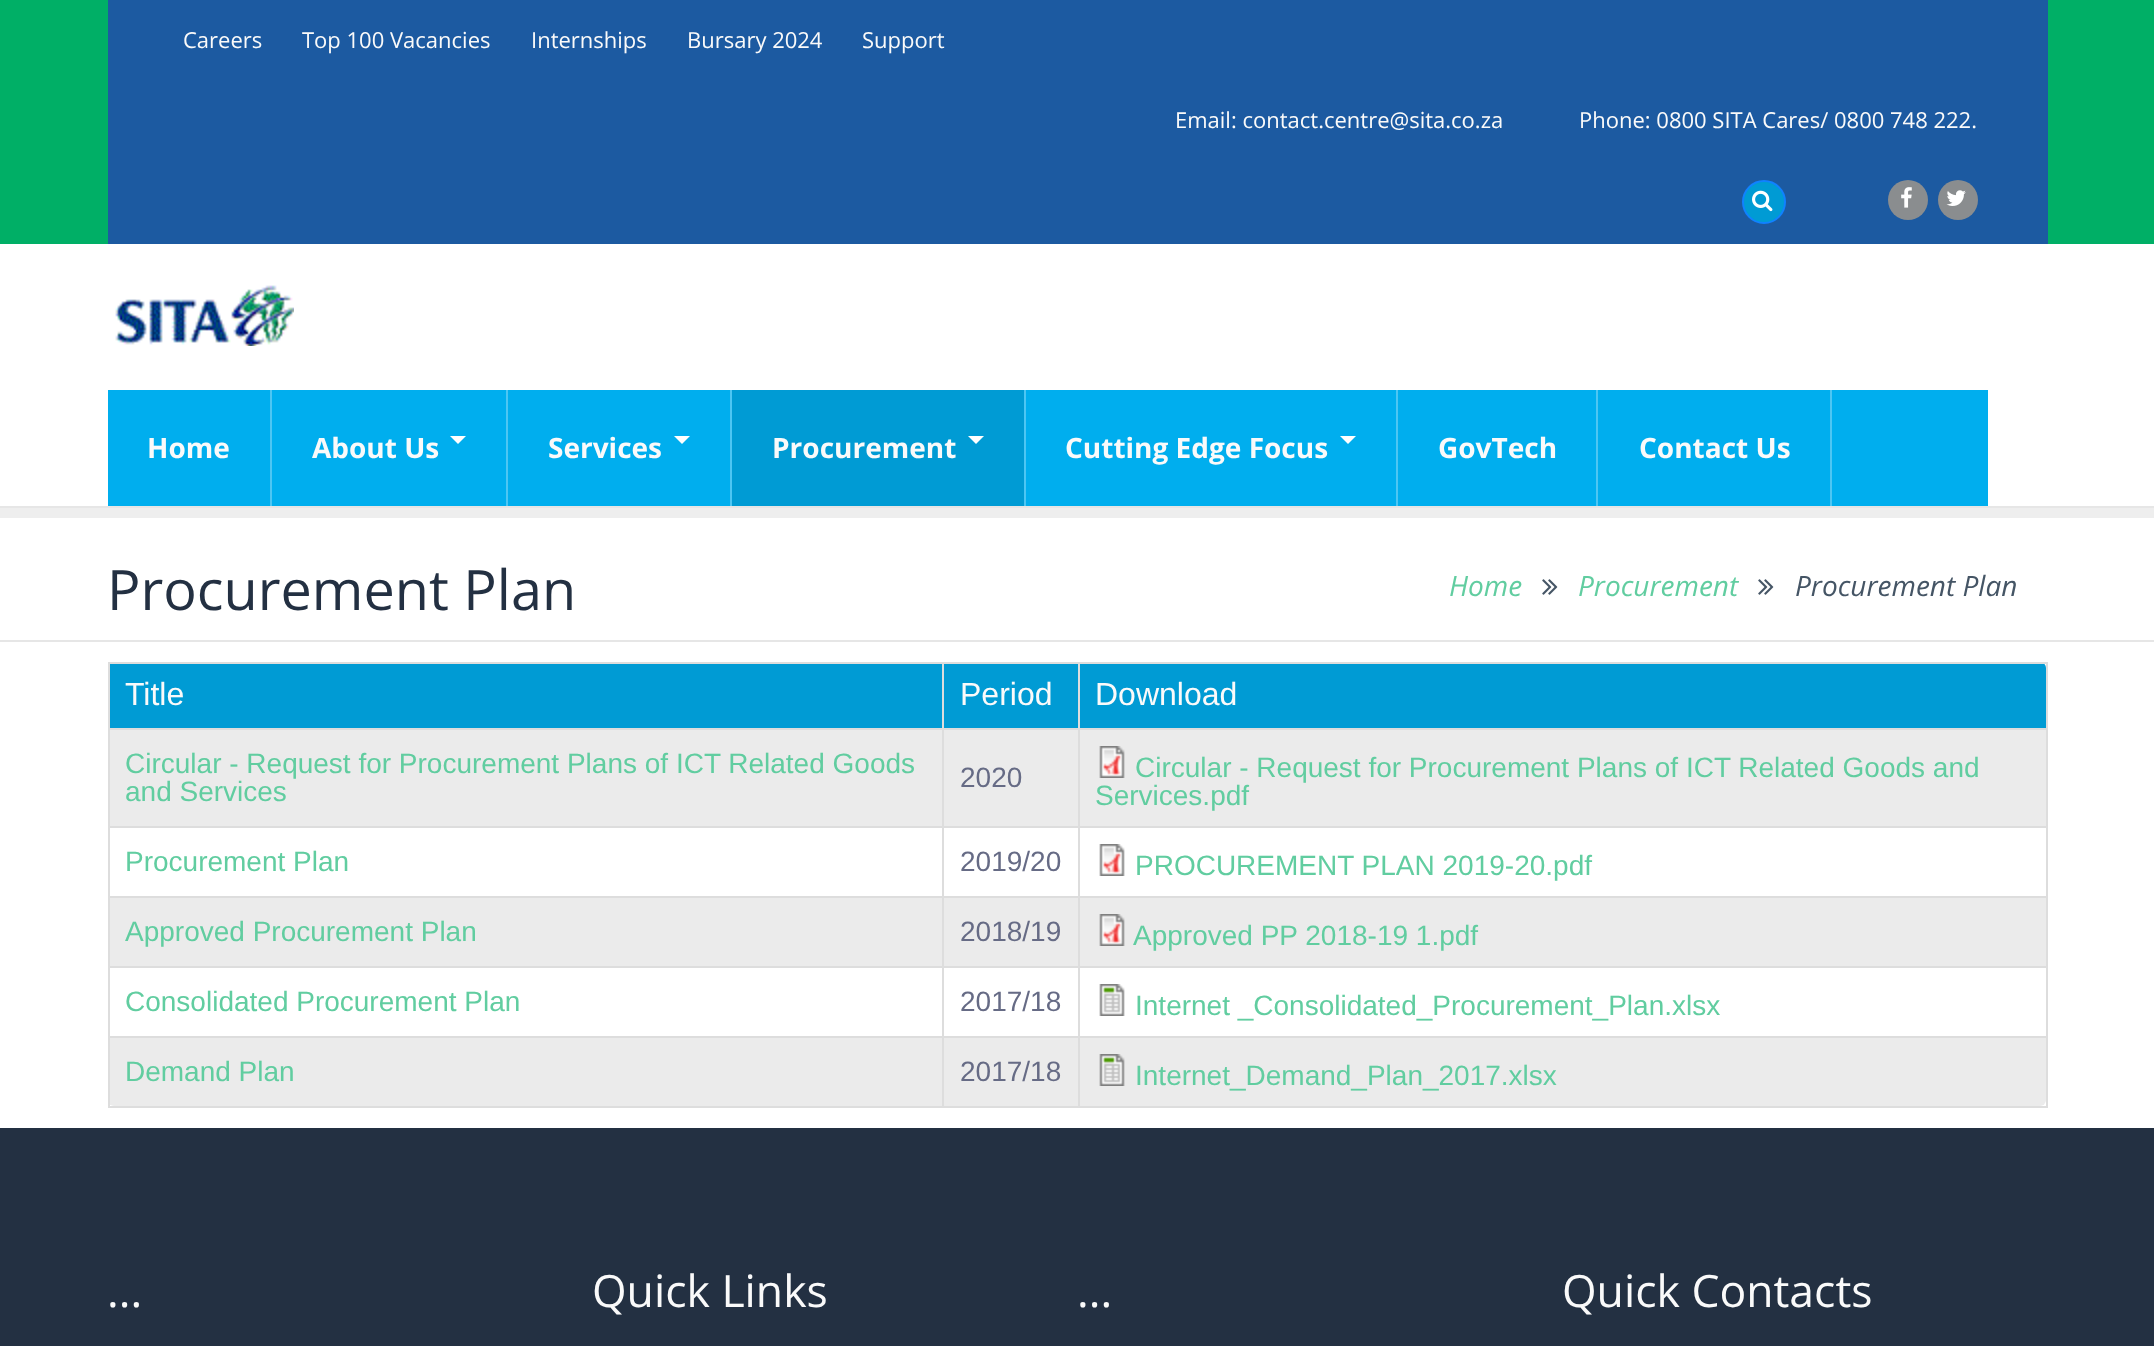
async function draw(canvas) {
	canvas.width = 2154;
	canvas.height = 1346;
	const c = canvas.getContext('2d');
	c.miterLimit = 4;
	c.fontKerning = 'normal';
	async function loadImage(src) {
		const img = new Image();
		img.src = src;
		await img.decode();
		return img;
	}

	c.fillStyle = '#fff';
	c.fillRect(0, 0, 2154, 1346);
	c.fillStyle = '#00af66';
	c.fillRect(0, 0, 2154, 244);
	c.fillStyle = '#1c5aa1';
	c.fillRect(108, 0, 1940, 244);
	c.font = '22px Open Sans';
	c.fillStyle = '#fafafa';
	for (const [text, x, y] of [
		['Careers', 183, 48],
		['Top 100 Vacancies', 302, 48],
		['Internships', 531, 48],
		['Bursary 2024', 687, 48],
		['Support', 862, 48],
		['Email: contact.centre@sita.co.za', 1175, 128],
		['Phone: 0800 SITA Cares/ 0800 748 222.', 1579, 128],
	]) {
		c.fillText(text, x, y);
	}
	c.fillStyle = '#009bd4';
	c.beginPath();
	c.arc(1764, 202, 21, 0, 2 * Math.PI);
	c.fill();
	c.strokeStyle = '#1082ff';
	c.lineWidth = 2;
	c.stroke();
	c.drawImage(await loadImage('img1.png'), 1752, 190, 21, 22);
	c.fillStyle = '#8a8d8f';
	c.beginPath();
	c.arc(1908, 200, 20, 0, 2 * Math.PI);
	c.fill();
	c.drawImage(await loadImage('img2.png'), 1901, 187, 11, 21);
	c.beginPath();
	c.arc(1958, 200, 20, 0, 2 * Math.PI);
	c.fill();
	c.drawImage(await loadImage('img3.png'), 1946, 190, 20, 16);
	c.fillStyle = '#e6e6e6';
	c.fillRect(0, 506, 2154, 2);
	c.drawImage(await loadImage('img4.png'), 115, 285, 179, 61);
	c.fillStyle = '#00aeee';
	c.fillRect(108, 390, 1880, 116);
	c.fillStyle = '#4dc6f3';
	c.fillRect(270, 390, 2, 116);
	c.font = 'bold 28px Open Sans';
	c.fillStyle = '#fafafa';
	c.fillText('Home', 147, 458);
	c.fillStyle = '#4dc6f3';
	c.fillRect(506, 390, 2, 116);
	c.fillStyle = '#fafafa';
	c.fillText('About Us', 312, 458);
	c.fillStyle = '#fff';
	c.beginPath();
	c.moveTo(450, 436);
	c.lineTo(466, 436);
	c.lineTo(458, 444);
	c.closePath();
	c.fill();
	c.fillStyle = '#4dc6f3';
	c.fillRect(730, 390, 2, 116);
	c.fillStyle = '#fafafa';
	c.fillText('Services', 548, 458);
	c.fillStyle = '#fff';
	c.beginPath();
	c.moveTo(674, 436);
	c.lineTo(690, 436);
	c.lineTo(682, 444);
	c.closePath();
	c.fill();
	c.fillStyle = '#009bd4';
	c.fillRect(732, 390, 292, 116);
	c.fillStyle = '#4dc6f3';
	c.fillRect(1024, 390, 2, 116);
	c.fillStyle = '#fafafa';
	c.fillText('Procurement', 772, 458);
	c.fillStyle = '#fff';
	c.beginPath();
	c.moveTo(968, 436);
	c.lineTo(984, 436);
	c.lineTo(976, 444);
	c.closePath();
	c.fill();
	c.fillStyle = '#4dc6f3';
	c.fillRect(1396, 390, 2, 116);
	c.fillStyle = '#fafafa';
	c.fillText('Cutting Edge Focus', 1065, 458);
	c.fillStyle = '#fff';
	c.beginPath();
	c.moveTo(1340, 436);
	c.lineTo(1356, 436);
	c.lineTo(1348, 444);
	c.closePath();
	c.fill();
	c.fillStyle = '#4dc6f3';
	c.fillRect(1596, 390, 2, 116);
	c.fillStyle = '#fafafa';
	c.fillText('GovTech', 1438, 458);
	c.fillStyle = '#4dc6f3';
	c.fillRect(1830, 390, 2, 116);
	c.fillStyle = '#fafafa';
	c.fillText('Contact Us', 1639, 458);
	c.fillStyle = '#eee';
	c.fillRect(0, 508, 2154, 10);
	c.fillStyle = '#e6e6e6';
	c.fillRect(0, 640, 2154, 2);
	c.font = '55.75px Open Sans';
	c.fillStyle = '#233042';
	c.fillText('Procurement Plan', 107, 610);
	c.font = 'italic 28px Open Sans';
	c.fillStyle = '#61cda0';
	c.fillText('Home', 1449, 596);
	c.drawImage(await loadImage('img5.png'), 1542, 579, 16, 16);
	c.fillText('Procurement', 1578, 596);
	c.drawImage(await loadImage('img5.png'), 1758, 579, 16, 16);
	c.fillStyle = '#455565';
	c.fillText('Procurement Plan', 1795, 596);
	c.fillStyle = '#009bd4';
	c.fillRect(110, 664, 832, 64);
	c.beginPath();
	c.roundRect(1078, 662, 968, 66, [0, 6, 0, 0]);
	c.fill();
	for (const [x, y, w, h, color] of [
		[1078, 662, 970, 2, '#ddd'],
		[1078, 728, 970, 2, '#ddd'],
		[1078, 826, 970, 2, '#ddd'],
		[1078, 896, 970, 2, '#ddd'],
		[1078, 966, 970, 2, '#ddd'],
	]) {
		c.fillStyle = color;
		c.fillRect(x, y, w, h);
	}
	c.fillStyle = '#ebebeb';
	c.beginPath();
	c.roundRect(1078, 1036, 968, 70, [0, 0, 6, 0]);
	c.fill();
	for (const [x, y, w, h, color] of [
		[1078, 1036, 970, 2, '#ddd'],
		[2046, 1036, 2, 72, '#ddd'],
		[1078, 1106, 970, 2, '#ddd'],
		[1078, 1036, 2, 72, '#ddd'],
		[942, 1036, 138, 2, '#ddd'],
		[1078, 966, 2, 72, '#ddd'],
		[942, 966, 138, 2, '#ddd'],
		[1078, 896, 2, 72, '#ddd'],
		[942, 896, 138, 2, '#ddd'],
		[1078, 826, 2, 72, '#ddd'],
		[942, 826, 138, 2, '#ddd'],
		[1078, 728, 2, 100, '#ddd'],
		[942, 728, 138, 2, '#ddd'],
		[1078, 662, 2, 68, '#ddd'],
		[942, 662, 138, 2, '#ddd'],
	]) {
		c.fillStyle = color;
		c.fillRect(x, y, w, h);
	}
	c.fillStyle = '#ebebeb';
	c.beginPath();
	c.roundRect(108, 1036, 834, 70, [0, 0, 0, 6]);
	c.fill();
	for (const [x, y, w, h, color] of [
		[942, 1106, 138, 2, '#ddd'],
		[942, 1036, 2, 72, '#ddd'],
		[108, 1036, 836, 2, '#ddd'],
		[942, 966, 2, 72, '#ddd'],
		[108, 966, 836, 2, '#ddd'],
		[942, 896, 2, 72, '#ddd'],
		[108, 896, 836, 2, '#ddd'],
		[942, 826, 2, 72, '#ddd'],
		[108, 826, 836, 2, '#ddd'],
		[942, 728, 2, 100, '#ddd'],
		[108, 728, 836, 2, '#ddd'],
		[942, 662, 2, 68, '#ddd'],
		[108, 662, 836, 2, '#ddd'],
		[108, 1106, 836, 2, '#ddd'],
		[108, 1036, 2, 72, '#ddd'],
		[108, 966, 2, 72, '#ddd'],
		[108, 896, 2, 72, '#ddd'],
		[108, 826, 2, 72, '#ddd'],
		[108, 728, 2, 100, '#ddd'],
		[108, 662, 2, 68, '#ddd'],
	]) {
		c.fillStyle = color;
		c.fillRect(x, y, w, h);
	}
	c.font = '32px Liberation Sans';
	c.fillStyle = '#fafafa';
	c.fillText('Title', 125, 705);
	c.fillStyle = '#009bd4';
	c.fillRect(944, 664, 134, 64);
	c.fillStyle = '#fafafa';
	c.fillText('Period', 960, 705);
	for (const [x, y, w, h, color] of [
		[2046, 966, 2, 72, '#ddd'],
		[2046, 896, 2, 72, '#ddd'],
		[2046, 826, 2, 72, '#ddd'],
		[2046, 728, 2, 100, '#ddd'],
		[2046, 662, 2, 68, '#ddd'],
	]) {
		c.fillStyle = color;
		c.fillRect(x, y, w, h);
	}
	c.fillStyle = '#fafafa';
	c.fillText('Download', 1095, 705);
	c.fillStyle = '#ebebeb';
	c.fillRect(110, 730, 832, 96);
	c.font = '28px Liberation Sans';
	c.fillStyle = '#61cda0';
	c.fillText('Circular - Request for Procurement Plans of ICT Related Goods', 125, 773);
	c.fillText('and Services', 125, 801);
	c.fillStyle = '#ebebeb';
	c.fillRect(944, 730, 134, 96);
	c.fillStyle = '#666b85';
	c.fillText('2020', 960, 787);
	c.fillStyle = '#ebebeb';
	c.fillRect(1080, 730, 966, 96);
	c.drawImage(await loadImage('img6.png'), 1099, 746, 26, 32);
	c.fillStyle = '#61cda0';
	for (const [text, x, y] of [
		['Circular - Request for Procurement Plans of ICT Related Goods and', 1135, 777],
		['Services.pdf', 1095, 805],
		['Procurement Plan', 125, 871],
	]) {
		c.fillText(text, x, y);
	}
	c.fillStyle = '#666b85';
	c.fillText('2019/20', 960, 871);
	c.drawImage(await loadImage('img7.png'), 1099, 844, 26, 32);
	c.fillStyle = '#61cda0';
	c.fillText('PROCUREMENT PLAN 2019-20.pdf', 1135, 875);
	c.fillStyle = '#ebebeb';
	c.fillRect(110, 898, 832, 68);
	c.fillStyle = '#61cda0';
	c.fillText('Approved Procurement Plan', 125, 941);
	c.fillStyle = '#ebebeb';
	c.fillRect(944, 898, 134, 68);
	c.fillStyle = '#666b85';
	c.fillText('2018/19', 960, 941);
	c.fillStyle = '#ebebeb';
	c.fillRect(1080, 898, 966, 68);
	c.drawImage(await loadImage('img6.png'), 1099, 914, 26, 32);
	c.fillStyle = '#61cda0';
	c.fillText('Approved PP 2018-19 1.pdf', 1133, 945);
	c.fillText('Consolidated Procurement Plan', 125, 1011);
	c.fillStyle = '#666b85';
	c.fillText('2017/18', 960, 1011);
	c.drawImage(await loadImage('img8.png'), 1099, 984, 26, 32);
	c.fillStyle = '#61cda0';
	c.fillText('Internet _Consolidated_Procurement_Plan.xlsx', 1135, 1015);
	c.fillText('Demand Plan', 125, 1081);
	c.fillStyle = '#ebebeb';
	c.fillRect(944, 1038, 134, 68);
	c.fillStyle = '#666b85';
	c.fillText('2017/18', 960, 1081);
	c.drawImage(await loadImage('img9.png'), 1099, 1054, 26, 32);
	c.fillStyle = '#61cda0';
	c.fillText('Internet_Demand_Plan_2017.xlsx', 1135, 1085);
	c.fillStyle = '#233042';
	c.fillRect(0, 1128, 2154, 218);
	c.font = '44.5px Open Sans';
	c.fillStyle = '#fafafa';
	for (const [text, x, y] of [
		['...', 107, 1307],
		['Quick Links', 592, 1307],
		['...', 1077, 1307],
		['Quick Contacts', 1562, 1307],
	]) {
		c.fillText(text, x, y);
	}
}

draw(document.querySelector('canvas'));
